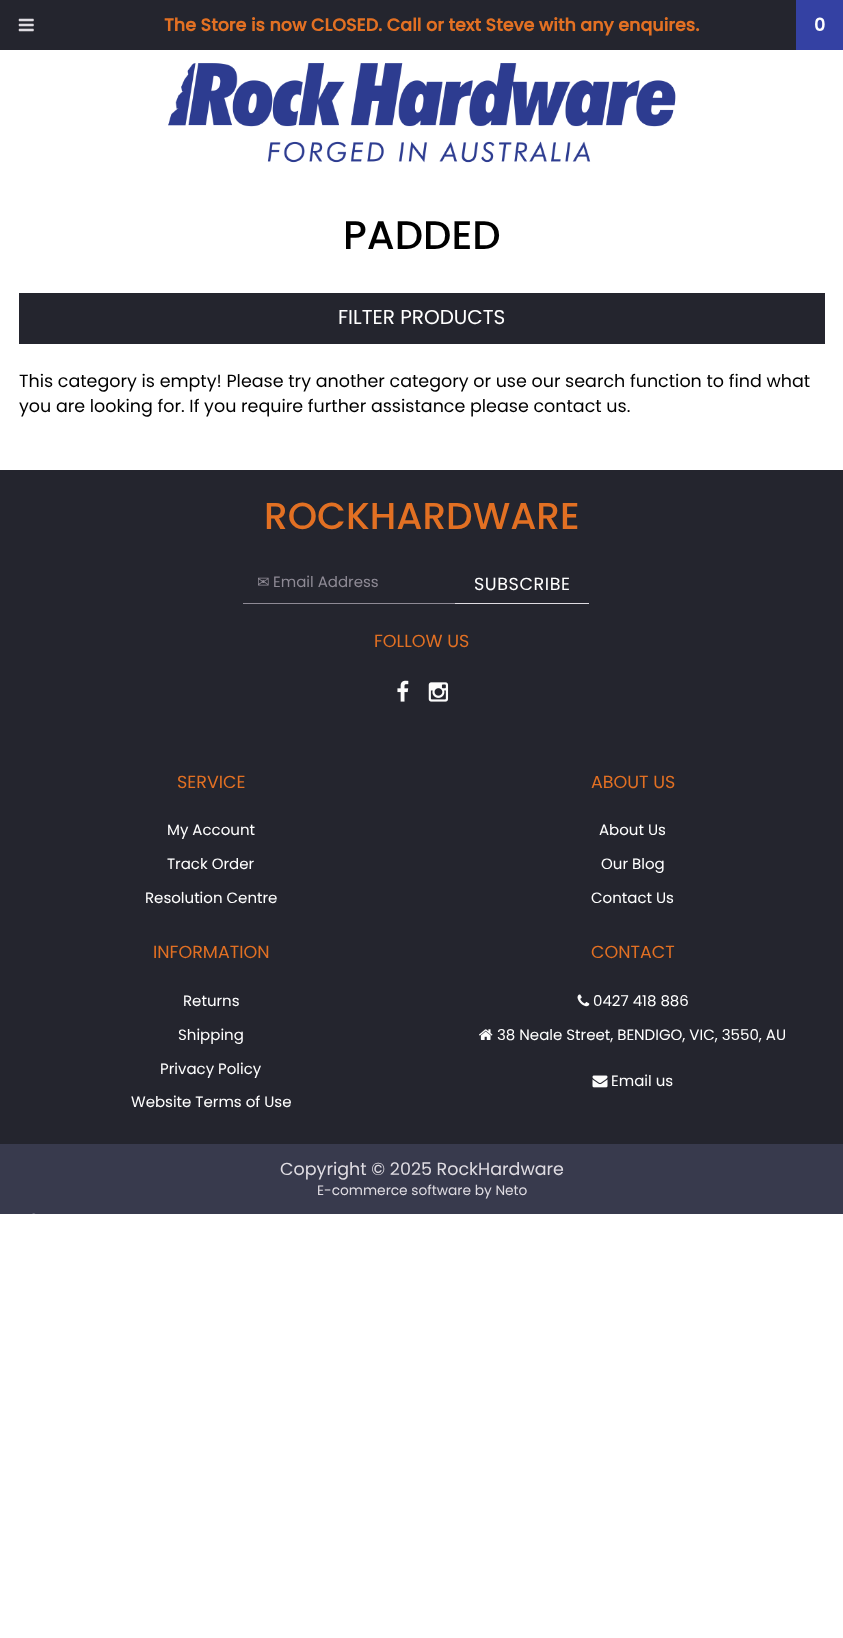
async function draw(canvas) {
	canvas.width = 843;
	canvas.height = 1638;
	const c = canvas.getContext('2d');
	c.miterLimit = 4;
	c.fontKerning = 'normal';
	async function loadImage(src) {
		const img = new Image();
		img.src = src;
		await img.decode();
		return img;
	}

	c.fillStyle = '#fff';
	c.fillRect(0, 0, 843, 1638);
	c.fillStyle = '#24252e';
	c.fillRect(0, 0, 796, 50);
	c.drawImage(await loadImage('img1.png'), 18, 18, 16, 14);
	c.font = 'bold 17.5px Poppins';
	c.fillStyle = '#e27023';
	c.fillText('The Store is now CLOSED. Call or text Steve with any enquires.', 164, 31);
	c.fillStyle = '#3441a3';
	c.fillRect(796, 0, 47, 50);
	c.fillStyle = '#fff';
	c.fillText('0', 814, 31);
	c.drawImage(await loadImage('img2.png'), 168, 63, 508, 100);
	c.font = '500 40px Poppins';
	c.fillStyle = '#000';
	c.fillText('PADDED', 343, 249);
	c.fillStyle = '#24252e';
	c.fillRect(19, 293, 806, 51);
	c.font = '20px Poppins';
	c.fillStyle = '#fff';
	c.fillText('FILTER PRODUCTS', 338, 324);
	c.font = '17.5px Poppins';
	c.fillStyle = '#000';
	c.fillText('This category is empty! Please try another category or use our search function to find what', 19, 387);
	c.fillText('you are looking for. If you require further assistance please contact us.', 19, 412);
	c.fillStyle = '#24252e';
	c.fillRect(0, 470, 843, 674);
	c.font = '500 37.5px Poppins';
	c.fillStyle = '#e27023';
	c.fillText('ROCKHARDWARE', 264, 529);
	c.fillStyle = '#8e8a95';
	c.fillRect(243, 603, 213, 1);
	c.save();
	c.beginPath();
	c.rect(258, 570, 183, 23);
	c.clip();
	c.font = '15px DejaVu Sans';
	c.fillText('✉', 257, 587);
	c.restore();
	c.font = '15px Poppins';
	c.fillText('Email Address', 273, 587);
	c.fillStyle = '#dfdce2';
	c.fillRect(455, 603, 134, 1);
	c.letterSpacing = '0.6px';
	c.font = '17.5px Poppins';
	c.fillStyle = '#fff';
	c.fillText('SUBSCRIBE', 474, 590);
	c.letterSpacing = '0px';
	c.fillStyle = '#e27023';
	c.fillText('FOLLOW US', 374, 647);
	c.drawImage(await loadImage('img3.png'), 397, 680, 12, 22);
	c.drawImage(await loadImage('img4.png'), 428, 682, 21, 20);
	c.fillText('SERVICE', 177, 788);
	c.font = '15px Poppins';
	c.fillStyle = '#fff';
	for (const [text, x, y] of [
		['My Account', 167, 835],
		['Track Order', 167, 869],
		['Resolution Centre', 145, 903],
	]) {
		c.fillText(text, x, y);
	}
	c.font = '17.5px Poppins';
	c.fillStyle = '#e27023';
	c.fillText('ABOUT US', 591, 788);
	c.font = '15px Poppins';
	c.fillStyle = '#fff';
	for (const [text, x, y] of [
		['About Us', 599, 835],
		['Our Blog', 601, 869],
		['Contact Us', 591, 903],
	]) {
		c.fillText(text, x, y);
	}
	c.font = '17.5px Poppins';
	c.fillStyle = '#e27023';
	c.fillText('INFORMATION', 153, 958);
	c.font = '15px Poppins';
	c.fillStyle = '#fff';
	for (const [text, x, y] of [
		['Returns', 183, 1006],
		['Shipping', 178, 1040],
		['Privacy Policy', 160, 1074],
		['Website Terms of Use', 131, 1107],
	]) {
		c.fillText(text, x, y);
	}
	c.font = '17.5px Poppins';
	c.fillStyle = '#e27023';
	c.fillText('CONTACT', 591, 958);
	c.drawImage(await loadImage('img5.png'), 577, 994, 13, 13);
	c.font = '15px Poppins';
	c.fillStyle = '#fff';
	c.fillText('0427 418 886', 593, 1006);
	c.drawImage(await loadImage('img6.png'), 479, 1029, 14, 11);
	c.fillText('38 Neale Street, BENDIGO, VIC, 3550, AU', 497, 1040);
	c.drawImage(await loadImage('img7.png'), 592, 1075, 16, 13);
	c.fillText('Email us', 611, 1086);
	c.fillStyle = '#383a4d';
	c.fillRect(0, 1144, 843, 70);
	c.font = '17.5px Poppins';
	c.fillStyle = '#dfdce2';
	c.fillText('Copyright © 2025 RockHardware', 280, 1175);
	c.font = '13.75px Poppins';
	c.fillText('E-commerce software by Neto', 317, 1195);
	c.drawImage(await loadImage('img8.png'), 32, 1213, 4, 1);
}

draw(document.querySelector('canvas'));
